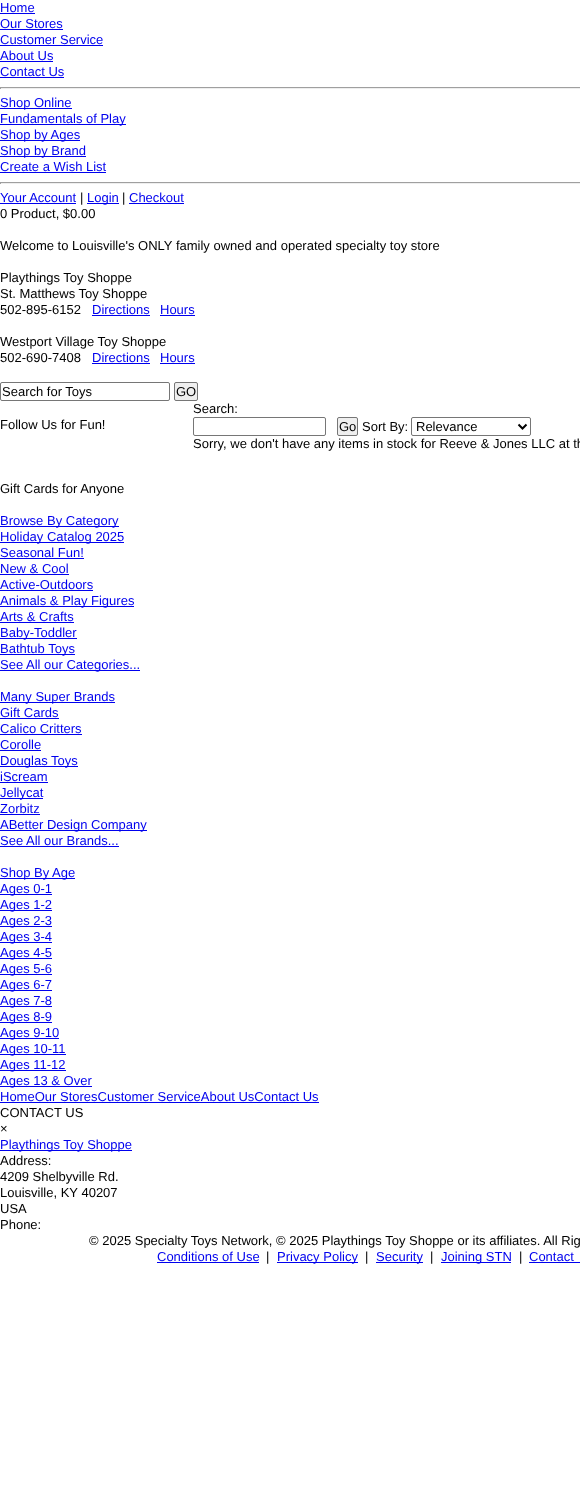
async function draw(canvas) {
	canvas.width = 580;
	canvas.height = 1492;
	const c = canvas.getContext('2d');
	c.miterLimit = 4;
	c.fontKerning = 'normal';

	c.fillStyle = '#fff';
	c.fillRect(0, 0, 580, 1492);
	c.font = '13px Liberation Sans';
	c.fillStyle = '#00e';
	c.fillText('Home', 0, 12);
	c.fillRect(0, 13, 35, 1);
	c.fillText('Our Stores', 0, 28);
	c.fillRect(0, 29, 63, 1);
	c.fillText('Customer Service', 0, 44);
	c.fillRect(0, 45, 103, 1);
	c.fillText('About Us', 0, 60);
	c.fillRect(0, 61, 53, 1);
	c.fillText('Contact Us', 0, 76);
	for (const [x, y, w, h, color] of [
		[0, 77, 64, 1, '#00e'],
		[0, 87, 580, 1, '#9f9f9f'],
		[0, 88, 580, 1, '#eee'],
		[0, 87, 1, 2, '#9f9f9f'],
		[0, 108, 72, 1, '#00e'],
	]) {
		c.fillStyle = color;
		c.fillRect(x, y, w, h);
	}
	c.fillText('Shop Online', 0, 107);
	c.fillRect(0, 124, 126, 1);
	c.fillText('Fundamentals of Play', 0, 123);
	c.fillRect(0, 140, 80, 1);
	c.fillText('Shop by Ages', 0, 139);
	c.fillRect(0, 156, 86, 1);
	c.fillText('Shop by Brand', 0, 155);
	c.fillText('Create a Wish List', 0, 171);
	for (const [x, y, w, h, color] of [
		[0, 172, 106, 1, '#00e'],
		[0, 182, 580, 1, '#9f9f9f'],
		[0, 183, 580, 1, '#eee'],
		[0, 182, 1, 2, '#9f9f9f'],
	]) {
		c.fillStyle = color;
		c.fillRect(x, y, w, h);
	}
	c.fillStyle = '#00e';
	c.fillText('Your Account', 0, 202);
	c.fillRect(0, 203, 76, 1);
	c.fillStyle = '#000';
	c.fillText('|', 80, 202);
	c.fillStyle = '#00e';
	c.fillRect(87, 203, 32, 1);
	c.fillText('Login', 87, 202);
	c.fillStyle = '#000';
	c.fillText('|', 122, 202);
	c.fillStyle = '#00e';
	c.fillText('Checkout', 129, 202);
	c.fillRect(129, 203, 55, 1);
	c.fillStyle = '#000';
	for (const [text, x, y] of [
		['0 Product, $0.00', 0, 218],
		['Welcome to Louisville\'s ONLY family owned and operated specialty toy store', 0, 250],
		['Playthings Toy Shoppe', 0, 282],
		['St. Matthews Toy Shoppe', 0, 298],
		['502-895-6152', 0, 314],
	]) {
		c.fillText(text, x, y);
	}
	c.fillStyle = '#00e';
	c.fillText('Directions', 92, 314);
	c.fillRect(92, 315, 58, 1);
	c.fillText('Hours', 160, 314);
	c.fillRect(160, 315, 35, 1);
	c.fillStyle = '#000';
	c.fillText('Westport Village Toy Shoppe', 0, 346);
	c.fillText('502-690-7408', 0, 362);
	c.fillStyle = '#00e';
	c.fillText('Directions', 92, 362);
	c.fillRect(92, 363, 58, 1);
	c.fillText('Hours', 160, 362);
	c.fillRect(160, 363, 35, 1);
	c.beginPath();
	c.roundRect(0.5, 382.5, 169, 18, 1.5);
	c.strokeStyle = '#767676';
	c.stroke();
	c.fillStyle = '#000';
	c.fillText('Search for Toys', 2, 396);
	c.fillStyle = '#efefef';
	c.beginPath();
	c.roundRect(174.5, 382.5, 23, 18, 1.5);
	c.fill();
	c.stroke();
	c.fillStyle = '#000';
	for (const [text, x, y] of [
		['GO', 176, 396],
		['Follow Us for Fun!', 0, 429],
		['Gift Cards for Anyone', 0, 493],
	]) {
		c.fillText(text, x, y);
	}
	c.fillStyle = '#00e';
	c.fillRect(0, 526, 119, 1);
	c.fillText('Browse By Category', 0, 525);
	c.fillRect(0, 542, 124, 1);
	c.fillText('Holiday Catalog 2025', 0, 541);
	c.fillText('Seasonal Fun!', 0, 557);
	c.fillRect(0, 558, 84, 1);
	c.fillText('New & Cool', 0, 573);
	c.fillRect(0, 574, 69, 1);
	c.fillText('Active-Outdoors', 0, 589);
	c.fillRect(0, 590, 93, 1);
	c.fillRect(0, 606, 134, 1);
	c.fillText('Animals & Play Figures', 0, 605);
	c.fillText('Arts & Crafts', 0, 621);
	c.fillRect(0, 622, 74, 1);
	c.fillRect(0, 638, 77, 1);
	c.fillText('Baby-Toddler', 0, 637);
	c.fillRect(0, 654, 75, 1);
	c.fillText('Bathtub Toys', 0, 653);
	c.fillRect(0, 670, 140, 1);
	c.fillText('See All our Categories...', 0, 669);
	c.fillRect(0, 702, 115, 1);
	c.fillText('Many Super Brands', 0, 701);
	c.fillText('Gift Cards', 0, 717);
	c.fillRect(0, 718, 59, 1);
	c.fillText('Calico Critters', 0, 733);
	c.fillRect(0, 734, 82, 1);
	c.fillText('Corolle', 0, 749);
	c.fillRect(0, 750, 41, 1);
	c.fillRect(0, 766, 78, 1);
	c.fillText('Douglas Toys', 0, 765);
	c.fillText('iScream', 0, 781);
	c.fillRect(0, 782, 48, 1);
	c.fillRect(0, 798, 43, 1);
	c.fillText('Jellycat', 0, 797);
	c.fillText('Zorbitz', 0, 813);
	c.fillRect(0, 814, 40, 1);
	c.fillRect(0, 830, 147, 1);
	c.fillText('ABetter Design Company', 0, 829);
	c.fillText('See All our Brands...', 0, 845);
	c.fillRect(0, 846, 119, 1);
	c.fillRect(0, 878, 75, 1);
	c.fillText('Shop By Age', 0, 877);
	c.fillRect(0, 894, 52, 1);
	c.fillText('Ages 0-1', 0, 893);
	c.fillRect(0, 910, 52, 1);
	c.fillText('Ages 1-2', 0, 909);
	c.fillRect(0, 926, 52, 1);
	c.fillText('Ages 2-3', 0, 925);
	c.fillRect(0, 942, 52, 1);
	c.fillText('Ages 3-4', 0, 941);
	c.fillRect(0, 958, 52, 1);
	c.fillText('Ages 4-5', 0, 957);
	c.fillRect(0, 974, 52, 1);
	c.fillText('Ages 5-6', 0, 973);
	c.fillRect(0, 990, 52, 1);
	c.fillText('Ages 6-7', 0, 989);
	c.fillRect(0, 1006, 52, 1);
	c.fillText('Ages 7-8', 0, 1005);
	c.fillRect(0, 1022, 52, 1);
	c.fillText('Ages 8-9', 0, 1021);
	c.fillRect(0, 1038, 59, 1);
	c.fillText('Ages 9-10', 0, 1037);
	c.fillRect(0, 1054, 66, 1);
	c.fillText('Ages 10-11', 0, 1053);
	c.fillRect(0, 1070, 66, 1);
	c.fillText('Ages 11-12', 0, 1069);
	c.fillRect(0, 1086, 92, 1);
	c.fillText('Ages 13 & Over', 0, 1085);
	c.fillStyle = '#000';
	c.fillText('Search:', 193, 413);
	c.beginPath();
	c.roundRect(193.5, 417.5, 132, 18, 1.5);
	c.stroke();
	c.fillStyle = '#efefef';
	c.beginPath();
	c.roundRect(337.5, 417.5, 20, 18, 1.5);
	c.fill();
	c.stroke();
	c.fillStyle = '#000';
	c.fillText('Go', 339, 431);
	c.fillText('Sort By:', 362, 431);
	c.beginPath();
	c.roundRect(411.5, 417.5, 119, 18, 1.5);
	c.stroke();
	c.beginPath();
	c.moveTo(518.5, 424.5);
	c.lineTo(522.5, 428.5);
	c.lineTo(526.5, 424.5);
	c.strokeStyle = '#000';
	c.lineWidth = 2;
	c.stroke();
	c.fillText('Relevance', 416, 431);
	c.fillText('Sorry, we don\'t have any items in stock for Reeve & Jones LLC at th', 193, 448);
	c.fillStyle = '#00e';
	c.fillText('HomeOur StoresCustomer ServiceAbout UsContact Us', 0, 1101);
	c.fillRect(0, 1102, 319, 1);
	c.fillStyle = '#000';
	c.fillText('CONTACT US', 0, 1117);
	c.fillText('×', 0, 1133);
	c.fillStyle = '#00e';
	c.fillRect(0, 1150, 132, 1);
	c.fillText('Playthings Toy Shoppe', 0, 1149);
	c.fillStyle = '#000';
	for (const [text, x, y] of [
		['Address:', 0, 1165],
		['4209 Shelbyville Rd.', 0, 1181],
		['Louisville, KY 40207', 0, 1197],
		['USA', 0, 1213],
		['Phone:', 0, 1229],
		['© 2025 Specialty Toys Network, © 2025 Playthings Toy Shoppe or its affiliates. All Rig', 89, 1245],
	]) {
		c.fillText(text, x, y);
	}
	c.fillStyle = '#00e';
	c.fillText('Conditions of Use', 157, 1261);
	c.fillRect(157, 1262, 102, 1);
	c.fillStyle = '#000';
	c.fillText('|', 266, 1261);
	c.fillStyle = '#00e';
	c.fillRect(277, 1262, 81, 1);
	c.fillText('Privacy Policy', 277, 1261);
	c.fillStyle = '#000';
	c.fillText('|', 365, 1261);
	c.fillStyle = '#00e';
	c.fillRect(376, 1262, 47, 1);
	c.fillText('Security', 376, 1261);
	c.fillStyle = '#000';
	c.fillText('|', 430, 1261);
	c.fillStyle = '#00e';
	c.fillRect(441, 1262, 70, 1);
	c.fillText('Joining STN', 441, 1261);
	c.fillStyle = '#000';
	c.fillText('|', 519, 1261);
	c.fillStyle = '#00e';
	c.fillText('Contact', 529, 1261);
	c.fillRect(529, 1262, 51, 1);
}

draw(document.querySelector('canvas'));
